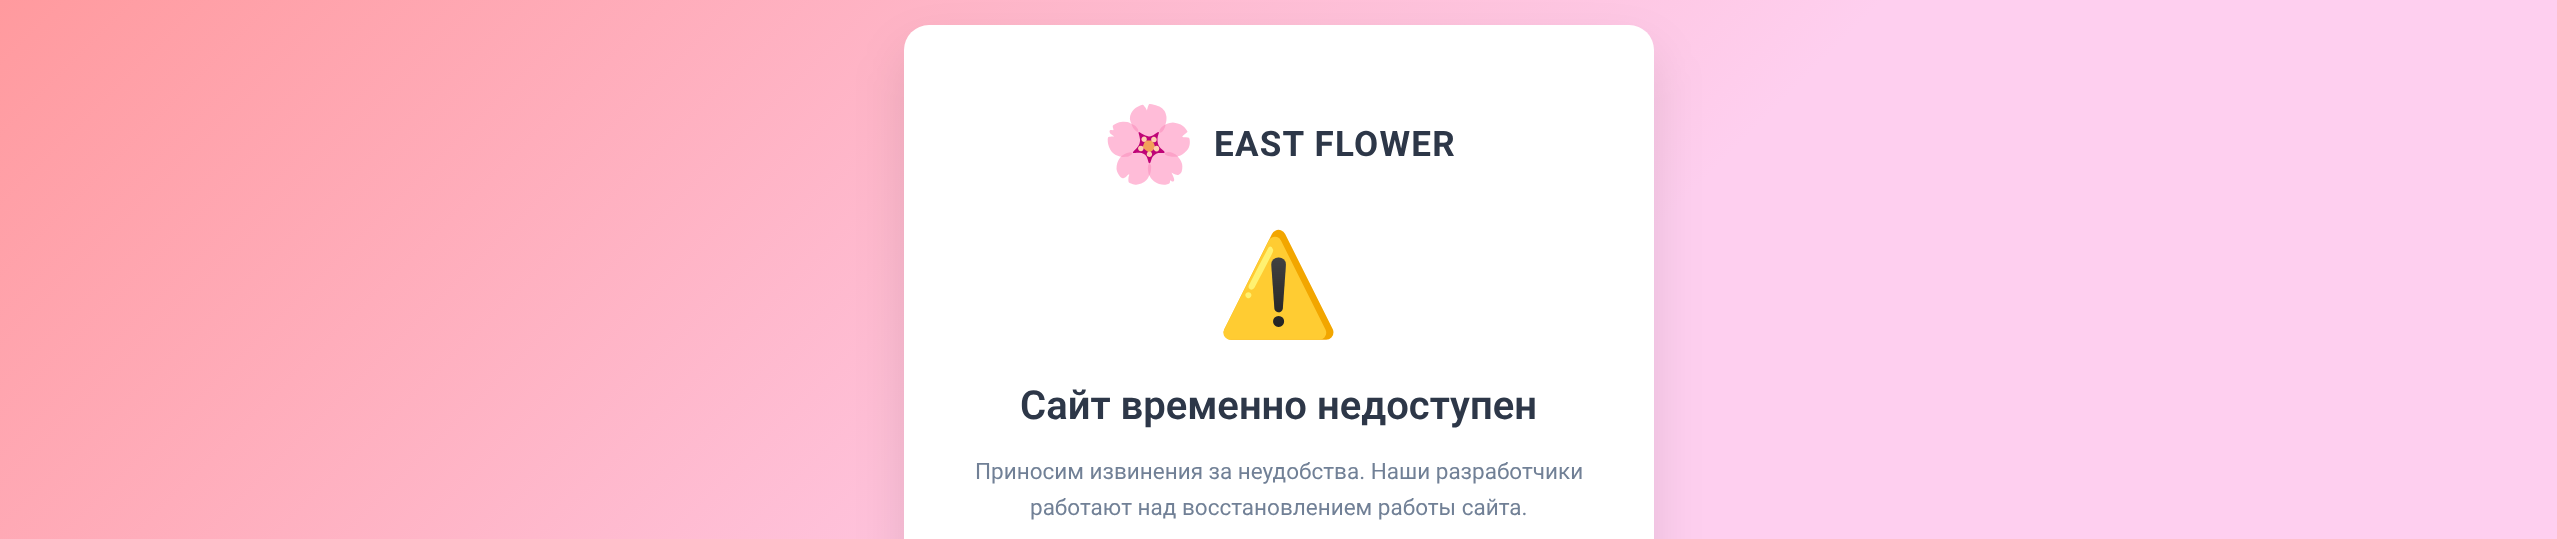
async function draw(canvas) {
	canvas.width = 2557;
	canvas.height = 539;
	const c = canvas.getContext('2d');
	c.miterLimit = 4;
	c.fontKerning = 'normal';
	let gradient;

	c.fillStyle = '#fff';
	c.fillRect(0, 0, 2557, 539);
	gradient = c.createLinearGradient(337, -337, 2221, 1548);
	gradient.addColorStop(0, '#ff9a9e');
	gradient.addColorStop(0.5, '#fecfef');
	gradient.addColorStop(1, '#fecfef');
	c.fillStyle = gradient;
	c.fillRect(0, 0, 2557, 539);
	c.fillStyle = '#0000001a';
	c.filter = 'blur(25px)';
	c.beginPath();
	c.roundRect(904, 50, 750, 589, 25);
	c.fill();
	c.filter = 'none';
	c.fillStyle = '#fff';
	c.beginPath();
	c.roundRect(904, 25, 750, 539, 25);
	c.fill();
	c.font = '75px Noto Color Emoji';
	c.fillStyle = '#ff6b9d';
	c.fillText('🌸', 1102, 170);
	c.letterSpacing = '1.25px';
	c.font = 'bold 35px Roboto';
	c.fillStyle = '#2d3748';
	c.fillText('EAST FLOWER', 1214, 156);
	c.letterSpacing = '0px';
	c.font = '100px Noto Color Emoji';
	c.fillStyle = '#e53e3e';
	c.fillText('⚠️', 1216, 319);
	c.font = '600 40px Roboto';
	c.fillStyle = '#2d3748';
	c.fillText('Сайт временно недоступен', 1020, 419);
	c.font = '22.5px Roboto';
	c.fillStyle = '#718096';
	c.fillText('Приносим извинения за неудобства. Наши разработчики', 975, 479);
	c.fillText('работают над восстановлением работы сайта.', 1030, 515);
}

draw(document.querySelector('canvas'));
